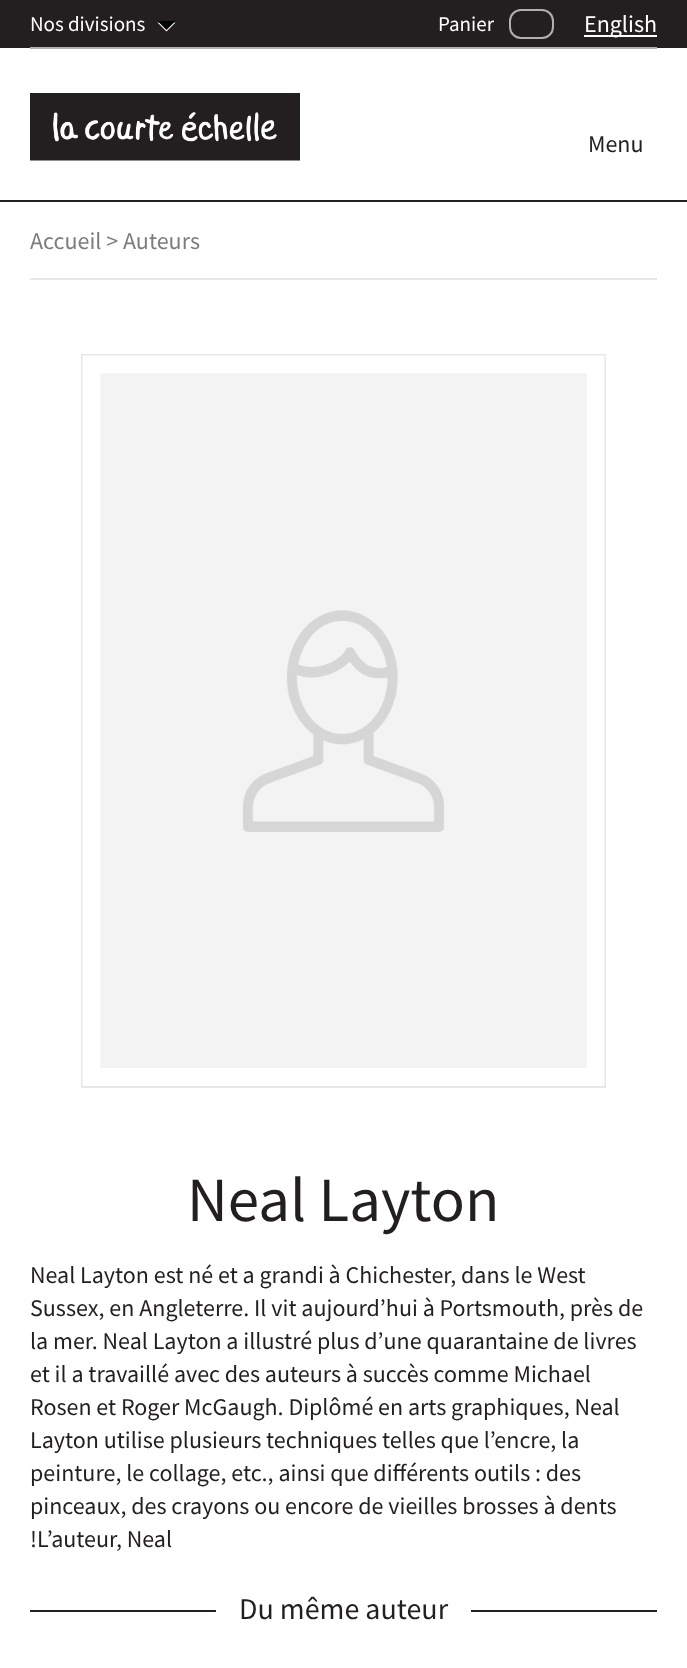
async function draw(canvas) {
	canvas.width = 687;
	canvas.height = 1668;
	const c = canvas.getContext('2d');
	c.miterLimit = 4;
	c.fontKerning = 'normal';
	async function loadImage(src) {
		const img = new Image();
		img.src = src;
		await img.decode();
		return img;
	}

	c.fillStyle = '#fff';
	c.fillRect(0, 0, 687, 1668);
	c.fillStyle = '#231f20';
	c.fillRect(0, 0, 687, 48);
	c.fillStyle = '#b1b0b0';
	c.fillRect(30, 47, 627, 2);
	c.font = '21px Source Sans Pro';
	c.fillStyle = '#fff';
	c.fillText('Nos divisions', 30, 31);
	c.beginPath();
	c.moveTo(157.5, 22.5);
	c.lineTo(175.5, 22.5);
	c.lineTo(166.5, 31.5);
	c.closePath();
	c.fill();
	c.fillStyle = '#000';
	c.beginPath();
	c.moveTo(157.5, 21);
	c.lineTo(175.5, 21);
	c.lineTo(166.5, 30);
	c.closePath();
	c.fill();
	c.fillStyle = '#fff';
	c.fillText('Panier', 438, 31);
	c.beginPath();
	c.roundRect(510, 10, 43, 28, 11);
	c.strokeStyle = '#b1b0b0';
	c.lineWidth = 2;
	c.stroke();
	c.fillRect(584, 35, 73, 2);
	c.font = '24px Source Sans Pro';
	c.fillText('English', 584, 32);
	c.fillStyle = '#231f20';
	c.fillRect(0, 200, 687, 2);
	c.drawImage(await loadImage('img1.png'), 30, 93, 270, 68);
	c.fillText('Menu', 588, 152);
	c.fillStyle = '#7d7d7d';
	c.fillText('Accueil > Auteurs', 30, 249);
	c.fillStyle = '#e7e7e7';
	c.fillRect(30, 278, 627, 2);
	c.strokeStyle = '#e7e7e7';
	c.strokeRect(82, 355, 523, 732);
	c.drawImage(await loadImage('img2.png'), 82, 355, 523, 731);
	c.font = '63px Source Sans Pro';
	c.fillStyle = '#231f20';
	c.fillText('Neal Layton', 187, 1221);
	c.font = '24px Source Sans Pro';
	for (const [text, x, y] of [
		['Neal Layton est né et a grandi à Chichester, dans le West', 30, 1283],
		['Sussex, en Angleterre. Il vit aujourd’hui à Portsmouth, près de', 30, 1316],
		['la mer. Neal Layton a illustré plus d’une quarantaine de livres', 30, 1349],
		['et il a travaillé avec des auteurs à succès comme Michael', 30, 1382],
		['Rosen et Roger McGaugh. Diplômé en arts graphiques, Neal', 30, 1415],
		['Layton utilise plusieurs techniques telles que l’encre, la', 30, 1448],
		['peinture, le collage, etc., ainsi que différents outils : des', 30, 1481],
		['pinceaux, des crayons ou encore de vieilles brosses à dents', 30, 1514],
		['!L’auteur, Neal', 30, 1547],
	]) {
		c.fillText(text, x, y);
	}
	c.fillRect(30, 1610, 627, 2);
	c.fillStyle = '#fff';
	c.fillRect(216, 1610, 255, 2);
	c.font = '30px Source Sans Pro';
	c.fillStyle = '#231f20';
	c.fillText('Du même auteur', 239, 1619);
}

draw(document.querySelector('canvas'));
